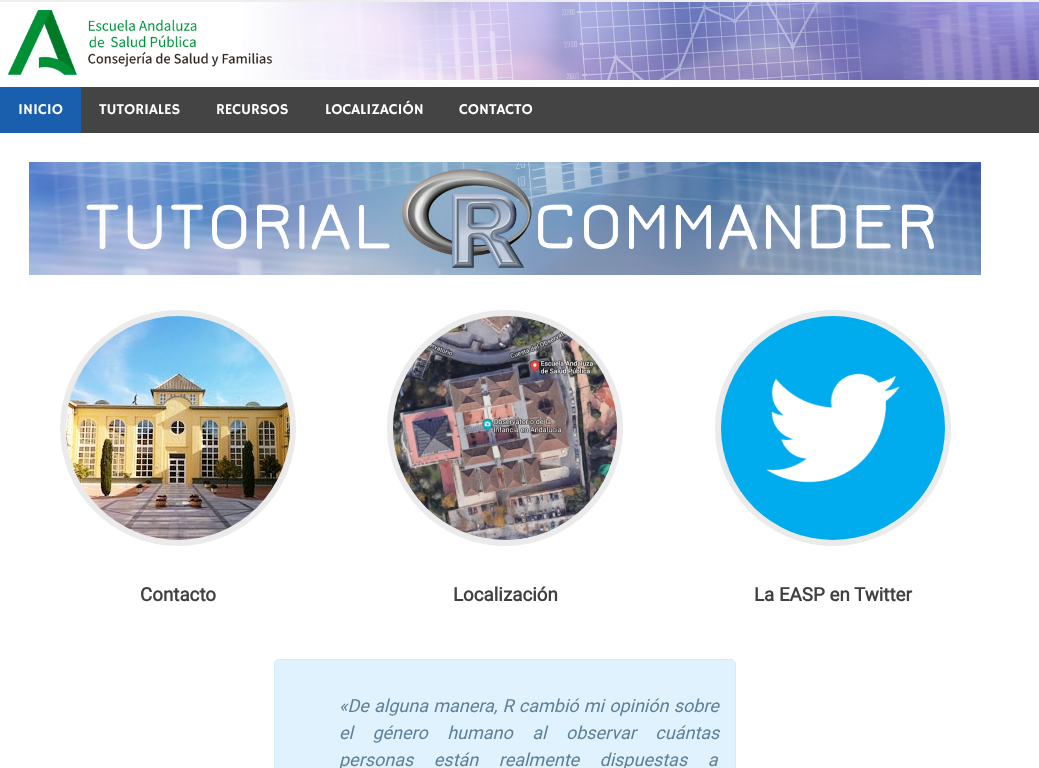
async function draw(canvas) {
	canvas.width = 1039;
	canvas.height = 768;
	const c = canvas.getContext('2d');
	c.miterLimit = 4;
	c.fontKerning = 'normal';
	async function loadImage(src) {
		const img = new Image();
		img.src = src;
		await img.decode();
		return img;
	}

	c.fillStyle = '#fff';
	c.fillRect(0, 0, 1039, 768);
	c.fillStyle = '#eee';
	c.fillRect(0, 0, 1039, 2);
	c.drawImage(await loadImage('img1.png'), 5, 2, 1034, 78);
	c.fillStyle = '#444';
	c.fillRect(81, 87, 958, 46);
	c.fillStyle = '#1a5fad';
	c.fillRect(0, 87, 81, 46);
	c.font = '15px Hammersmith One';
	c.fillStyle = '#fff';
	for (const [text, x, y] of [
		['INICIO', 18, 114],
		['TUTORIALES', 99, 114],
		['RECURSOS', 216, 114],
		['LOCALIZACIÓN', 325, 114],
		['CONTACTO', 459, 114],
	]) {
		c.fillText(text, x, y);
	}
	c.drawImage(await loadImage('img2.png'), 29, 162, 952, 113);
	c.fillStyle = '#ebebeb';
	c.beginPath();
	c.arc(178, 428, 118, 0, 2 * Math.PI);
	c.fill();
	c.drawImage(await loadImage('img3.png'), 66, 316, 224, 224);
	c.font = 'bold 18.75px Roboto';
	c.fillStyle = '#404040';
	c.fillText('Contacto', 140, 601);
	c.fillStyle = '#ebebeb';
	c.beginPath();
	c.arc(505, 428, 118, 0, 2 * Math.PI);
	c.fill();
	c.drawImage(await loadImage('img4.png'), 393, 316, 224, 224);
	c.fillStyle = '#404040';
	c.fillText('Localización', 453, 601);
	c.fillStyle = '#ebebeb';
	c.beginPath();
	c.arc(833, 428, 118, 0, 2 * Math.PI);
	c.fill();
	c.drawImage(await loadImage('img5.png'), 721, 316, 224, 224);
	c.fillStyle = '#404040';
	c.fillText('La EASP en Twitter', 754, 601);
	c.fillStyle = '#dff2fe';
	c.beginPath();
	c.roundRect(274.5, 659.5, 461, 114, 4.5);
	c.fill();
	c.strokeStyle = '#cfebfe';
	c.stroke();
	c.wordSpacing = '0.75px';
	c.font = 'italic 18px Roboto';
	c.fillStyle = '#5e7f96';
	c.fillText('«De alguna manera, R cambió mi opinión sobre', 339, 712);
	c.wordSpacing = '15px';
	c.fillText('el género humano al observar cuántas', 339, 739);
	c.wordSpacing = '16px';
	c.fillText('personas están realmente dispuestas a', 339, 766);
}

draw(document.querySelector('canvas'));
